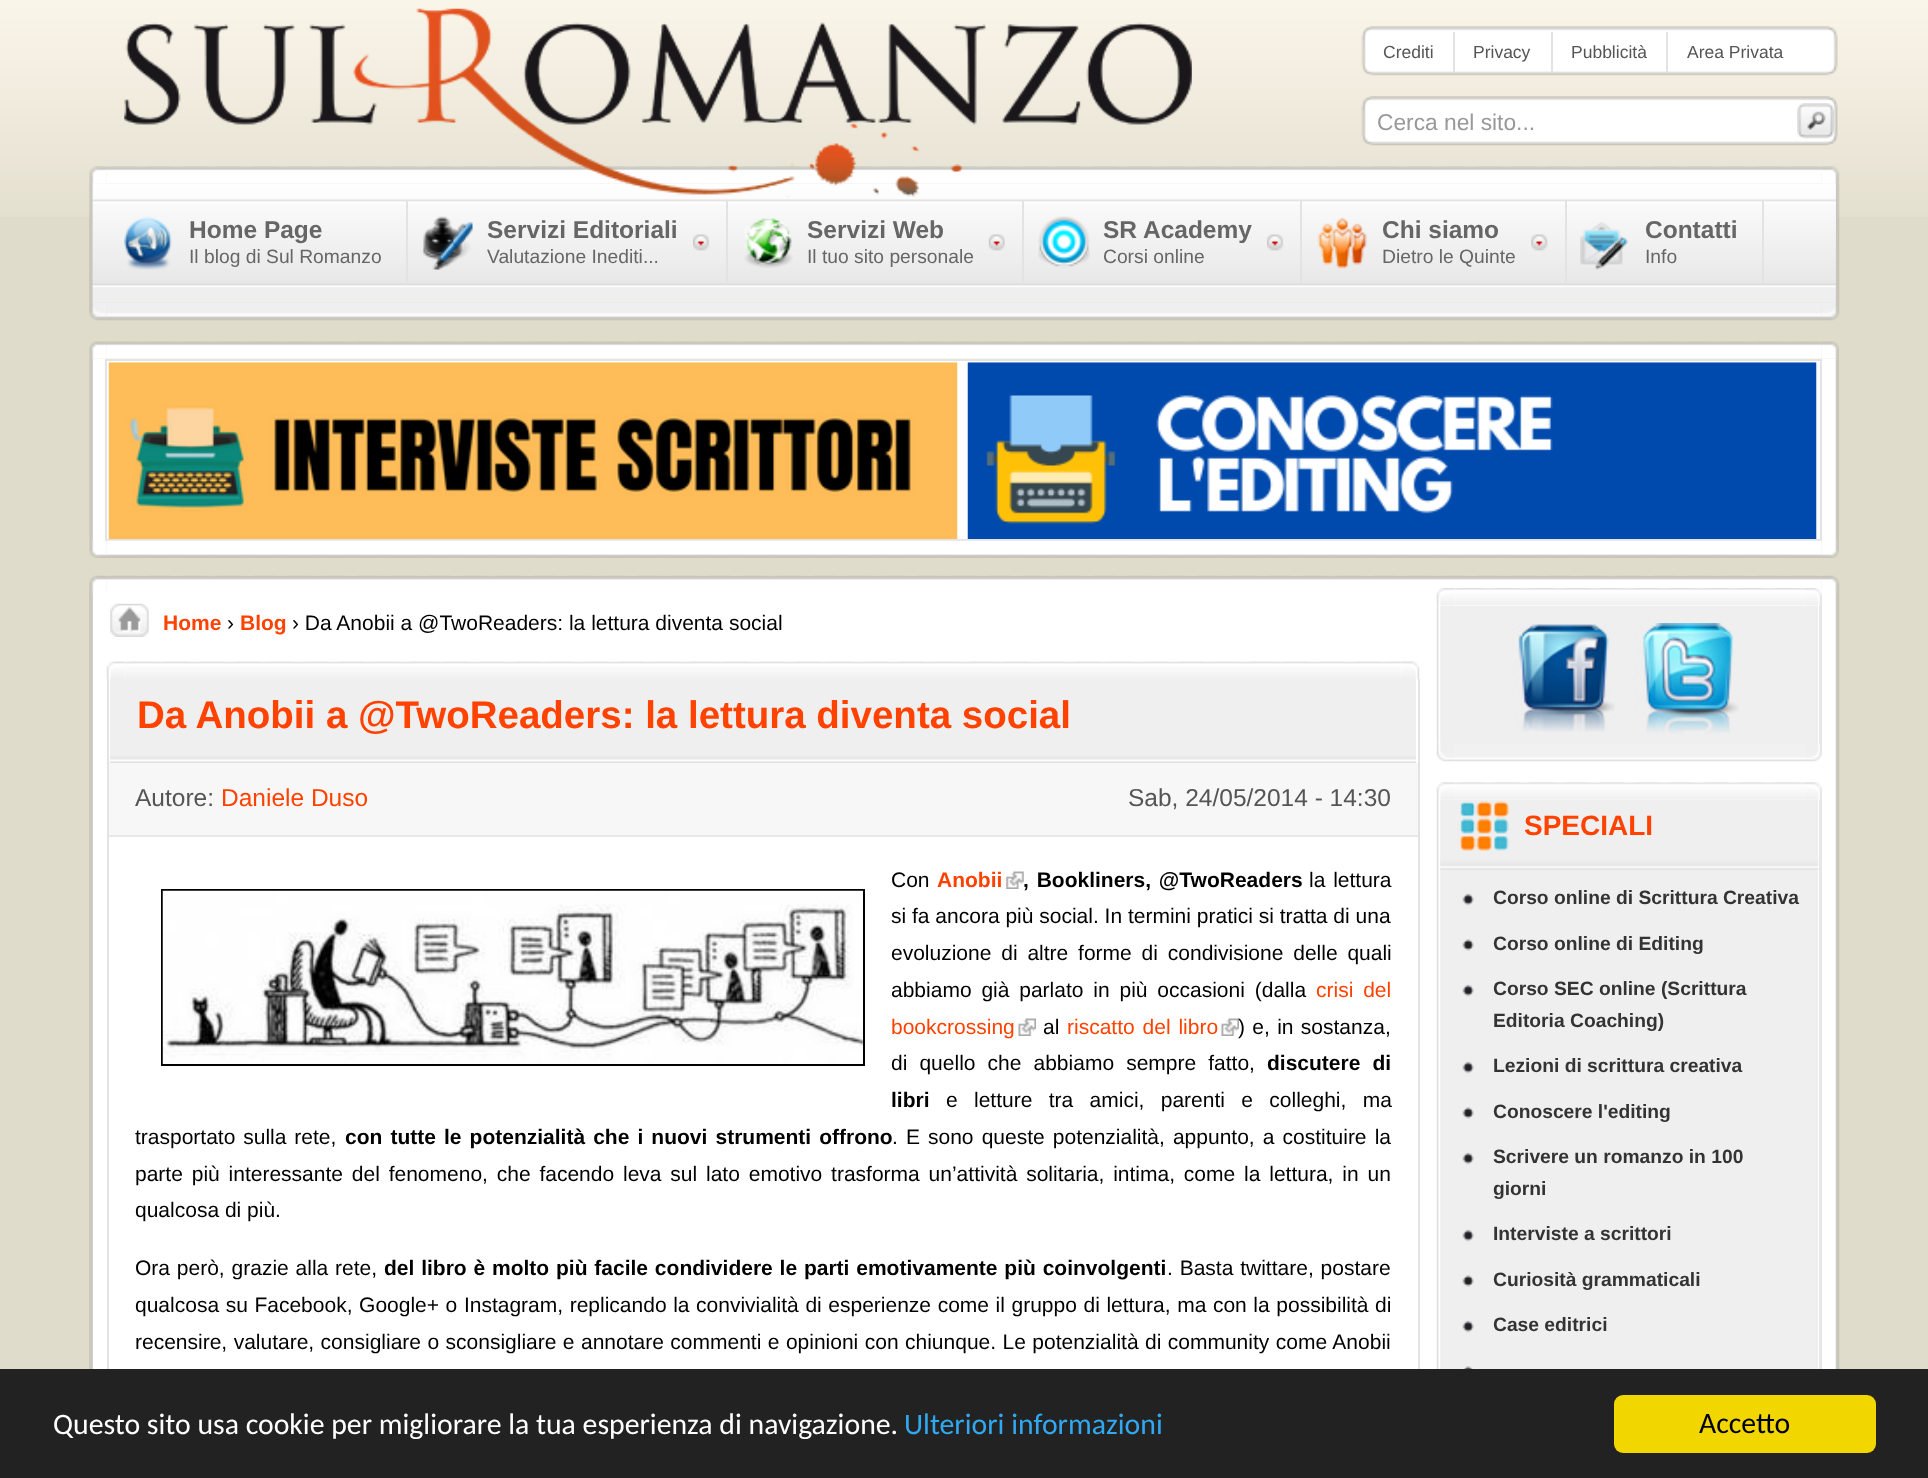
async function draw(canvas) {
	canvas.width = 1928;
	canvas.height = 1478;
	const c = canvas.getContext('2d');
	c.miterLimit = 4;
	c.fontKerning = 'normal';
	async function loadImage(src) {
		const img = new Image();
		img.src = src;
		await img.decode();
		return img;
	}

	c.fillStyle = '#e0dccb';
	c.fillRect(0, 0, 1928, 1478);
	c.drawImage(await loadImage('img1.png'), 0, 0, 1928, 217);
	c.drawImage(await loadImage('img9.png'), 92, 183, 1744, 104);
	c.drawImage(await loadImage('img10.png'), 89, 183, 4, 120);
	c.drawImage(await loadImage('img11.png'), 1835, 183, 5, 120);
	c.drawImage(await loadImage('img12.png'), 92, 183, 1744, 120);
	c.drawImage(await loadImage('img6.png'), 106, 166, 1716, 18);
	c.drawImage(await loadImage('img2.png'), 124, 8, 1068, 190);
	c.drawImage(await loadImage('img3.png'), 1361, 26, 477, 50);
	c.font = '17.5px Liberation Sans';
	c.fillStyle = '#555';
	c.fillText('Crediti', 1383, 58);
	c.fillStyle = '#e3e3e3';
	c.fillRect(1453, 32, 2, 40);
	c.fillStyle = '#555';
	c.fillText('Privacy', 1473, 58);
	c.fillStyle = '#e3e3e3';
	c.fillRect(1551, 32, 2, 40);
	c.fillStyle = '#555';
	c.fillText('Pubblicità', 1571, 58);
	c.fillStyle = '#e3e3e3';
	c.fillRect(1666, 32, 2, 40);
	c.fillStyle = '#555';
	c.fillText('Area Privata', 1687, 58);
	c.drawImage(await loadImage('img4.png'), 1361, 96, 477, 50);
	c.drawImage(await loadImage('img5.png'), 1797, 103, 37, 36);
	c.font = '22.75px Liberation Sans';
	c.fillStyle = '#999';
	c.fillText('Cerca nel sito...', 1377, 130);
	c.drawImage(await loadImage('img7.png'), 89, 166, 18, 18);
	c.drawImage(await loadImage('img8.png'), 1821, 166, 19, 18);
	c.fillStyle = '#e3e3e3';
	c.fillRect(406, 201, 2, 83);
	c.drawImage(await loadImage('img13.png'), 124, 216, 48, 54);
	c.font = 'bold 24.5px Liberation Sans';
	c.fillStyle = '#666';
	c.fillText('Home Page', 189, 238);
	c.font = '19.25px Liberation Sans';
	c.fillText('Il blog di Sul Romanzo', 189, 263);
	c.fillStyle = '#e3e3e3';
	c.fillRect(726, 201, 2, 83);
	c.drawImage(await loadImage('img14.png'), 422, 216, 51, 54);
	c.drawImage(await loadImage('img15.png'), 693, 234, 17, 17);
	c.font = 'bold 24.5px Liberation Sans';
	c.fillStyle = '#666';
	c.fillText('Servizi Editoriali', 487, 238);
	c.font = '19.25px Liberation Sans';
	c.fillText('Valutazione Inediti...', 487, 263);
	c.fillStyle = '#e3e3e3';
	c.fillRect(1022, 201, 2, 83);
	c.drawImage(await loadImage('img16.png'), 744, 218, 49, 50);
	c.drawImage(await loadImage('img17.png'), 988, 234, 17, 17);
	c.font = 'bold 24.5px Liberation Sans';
	c.fillStyle = '#666';
	c.fillText('Servizi Web', 807, 238);
	c.font = '19.25px Liberation Sans';
	c.fillText('Il tuo sito personale', 807, 263);
	c.fillStyle = '#e3e3e3';
	c.fillRect(1300, 201, 2, 83);
	c.drawImage(await loadImage('img18.png'), 1038, 216, 52, 52);
	c.drawImage(await loadImage('img15.png'), 1267, 234, 17, 17);
	c.font = 'bold 24.5px Liberation Sans';
	c.fillStyle = '#666';
	c.fillText('SR Academy', 1103, 238);
	c.font = '19.25px Liberation Sans';
	c.fillText('Corsi online', 1103, 263);
	c.fillStyle = '#e3e3e3';
	c.fillRect(1565, 201, 2, 83);
	c.drawImage(await loadImage('img19.png'), 1317, 217, 51, 52);
	c.drawImage(await loadImage('img20.png'), 1531, 234, 17, 17);
	c.font = 'bold 24.5px Liberation Sans';
	c.fillStyle = '#666';
	c.fillText('Chi siamo', 1382, 238);
	c.font = '19.25px Liberation Sans';
	c.fillText('Dietro le Quinte', 1382, 263);
	c.fillStyle = '#e3e3e3';
	c.fillRect(1762, 201, 2, 83);
	c.drawImage(await loadImage('img21.png'), 1580, 222, 48, 48);
	c.font = 'bold 24.5px Liberation Sans';
	c.fillStyle = '#666';
	c.fillText('Contatti', 1645, 238);
	c.font = '19.25px Liberation Sans';
	c.fillText('Info', 1645, 263);
	c.drawImage(await loadImage('img22.png'), 106, 303, 1716, 18);
	c.drawImage(await loadImage('img23.png'), 89, 302, 18, 19);
	c.drawImage(await loadImage('img24.png'), 1821, 302, 19, 19);
	c.drawImage(await loadImage('img25.png'), 106, 341, 1716, 18);
	c.drawImage(await loadImage('img28.png'), 89, 358, 4, 183);
	c.drawImage(await loadImage('img26.png'), 89, 341, 18, 18);
	c.fillStyle = '#fff';
	c.fillRect(93, 359, 1743, 182);
	c.drawImage(await loadImage('img29.png'), 1835, 358, 4, 183);
	c.drawImage(await loadImage('img27.png'), 1821, 341, 18, 18);
	c.strokeStyle = '#e3e3e3';
	c.lineWidth = 2;
	c.strokeRect(106, 360, 1715, 180);
	c.drawImage(await loadImage('img30.png'), 108, 362, 850, 177);
	c.drawImage(await loadImage('img31.png'), 967, 362, 850, 177);
	c.drawImage(await loadImage('img32.png'), 106, 540, 1716, 18);
	c.drawImage(await loadImage('img33.png'), 89, 540, 18, 18);
	c.drawImage(await loadImage('img34.png'), 1821, 540, 18, 18);
	c.drawImage(await loadImage('img35.png'), 106, 575, 1716, 18);
	c.fillRect(93, 593, 1743, 776);
	c.drawImage(await loadImage('img38.png'), 89, 593, 4, 776);
	c.drawImage(await loadImage('img36.png'), 89, 575, 18, 19);
	c.drawImage(await loadImage('img39.png'), 1835, 593, 5, 776);
	c.drawImage(await loadImage('img37.png'), 1821, 575, 19, 19);
	c.drawImage(await loadImage('img40.png'), 110, 603, 39, 34);
	c.font = 'bold 21px Liberation Sans';
	c.fillStyle = '#ff4200';
	c.fillText('Home', 163, 630);
	c.font = '21px Liberation Sans';
	c.fillStyle = '#000';
	c.fillText('›', 227, 630);
	c.font = 'bold 21px Liberation Sans';
	c.fillStyle = '#ff4200';
	c.fillText('Blog', 240, 630);
	c.font = '21px Liberation Sans';
	c.fillStyle = '#000';
	c.fillText('› Da Anobii a @TwoReaders: la lettura diventa social', 292, 630);
	c.drawImage(await loadImage('img41.png'), 124, 661, 1278, 18);
	c.drawImage(await loadImage('img42.png'), 106, 661, 18, 18);
	c.drawImage(await loadImage('img43.png'), 1402, 661, 18, 18);
	for (const [x, y, w, h, color] of [
		[1418, 679, 2, 690, '#e3e3e3'],
		[107, 679, 2, 690, '#e3e3e3'],
		[110, 679, 1306, 84, '#efefef'],
	]) {
		c.fillStyle = color;
		c.fillRect(x, y, w, h);
	}
	c.drawImage(await loadImage('img44.png'), 110, 756, 1306, 7);
	c.font = 'bold 38.5px Liberation Sans';
	c.fillStyle = '#ff4200';
	c.fillText('Da Anobii a @TwoReaders: la lettura diventa social', 137, 728);
	c.fillStyle = '#f7f7f7';
	c.fillRect(109, 763, 1309, 72);
	c.fillStyle = '#e7e7e7';
	c.fillRect(109, 835, 1309, 2);
	c.font = '24.5px Liberation Sans';
	c.fillStyle = '#555';
	c.fillText('Autore:', 135, 806);
	c.fillStyle = '#ff4200';
	c.fillText('Daniele Duso', 221, 806);
	c.fillStyle = '#555';
	c.fillText('Sab, 24/05/2014 - 14:30', 1128, 806);
	c.font = '21px Liberation Sans';
	c.fillStyle = '#000';
	c.fillText('Con', 891, 887);
	c.font = 'bold 21px Liberation Sans';
	c.fillStyle = '#ff4200';
	c.fillText('Anobii', 937, 887);
	c.drawImage(await loadImage('img45.png'), 1006, 871, 18, 18);
	c.wordSpacing = '2px';
	c.fillStyle = '#000';
	c.fillText(', Bookliners, @TwoReaders', 1023, 887);
	c.font = '21px Liberation Sans';
	c.fillText('la lettura', 1309, 887);
	c.strokeStyle = '#000';
	c.strokeRect(162, 890, 702, 175);
	c.drawImage(await loadImage('img46.png'), 162, 890, 701, 174);
	c.wordSpacing = '0px';
	c.fillText('si fa ancora più social. In termini pratici si tratta di una', 891, 923);
	c.wordSpacing = '4px';
	c.fillText('evoluzione di altre forme di condivisione delle quali', 891, 960);
	c.fillText('abbiamo già parlato in più occasioni (dalla', 891, 997);
	c.fillStyle = '#ff4200';
	c.fillText('crisi del', 1316, 997);
	c.wordSpacing = '0px';
	c.fillText('bookcrossing', 891, 1034);
	c.drawImage(await loadImage('img47.png'), 1018, 1018, 18, 18);
	c.fillStyle = '#000';
	c.fillText('al', 1043, 1034);
	c.wordSpacing = '2px';
	c.fillStyle = '#ff4200';
	c.fillText('riscatto del libro', 1067, 1034);
	c.drawImage(await loadImage('img47.png'), 1221, 1018, 18, 18);
	c.wordSpacing = '1.5px';
	c.fillStyle = '#000';
	c.fillText(') e, in sostanza,', 1238, 1034);
	c.wordSpacing = '6.25px';
	c.fillText('di quello che abbiamo sempre fatto,', 891, 1070);
	c.font = 'bold 21px Liberation Sans';
	c.fillText('discutere di', 1267, 1070);
	c.wordSpacing = '0px';
	c.fillText('libri', 891, 1107);
	c.wordSpacing = '10.5px';
	c.font = '21px Liberation Sans';
	c.fillText('e letture tra amici, parenti e colleghi, ma', 946, 1107);
	c.wordSpacing = '2px';
	c.fillText('trasportato sulla rete,', 135, 1144);
	c.wordSpacing = '2.25px';
	c.font = 'bold 21px Liberation Sans';
	c.fillText('con tutte le potenzialità che i nuovi strumenti offrono', 345, 1144);
	c.font = '21px Liberation Sans';
	c.fillText('. E sono queste potenzialità, appunto, a costituire la', 892, 1144);
	c.wordSpacing = '3px';
	c.fillText('parte più interessante del fenomeno, che facendo leva sul lato emotivo trasforma un’attività solitaria, intima, come la lettura, in un', 135, 1181);
	c.wordSpacing = '0px';
	c.fillText('qualcosa di più.', 135, 1217);
	c.wordSpacing = '1px';
	c.fillText('Ora però, grazie alla rete,', 135, 1275);
	c.font = 'bold 21px Liberation Sans';
	c.fillText('del libro è molto più facile condividere le parti emotivamente più coinvolgenti', 384, 1275);
	c.font = '21px Liberation Sans';
	c.fillText('. Basta twittare, postare', 1167, 1275);
	c.wordSpacing = '0.75px';
	c.fillText('qualcosa su Facebook, Google+ o Instagram, replicando la convivialità di esperienze come il gruppo di lettura, ma con la possibilità di', 135, 1312);
	c.wordSpacing = '0.6px';
	c.fillText('recensire, valutare, consigliare o sconsigliare e annotare commenti e opinioni con chiunque. Le potenzialità di community come Anobii', 135, 1349);
	c.drawImage(await loadImage('img48.png'), 1454, 588, 351, 18);
	c.fillStyle = '#efefef';
	c.fillRect(1440, 606, 378, 138);
	c.drawImage(await loadImage('img51.png'), 1436, 605, 5, 139);
	c.drawImage(await loadImage('img49.png'), 1436, 588, 18, 18);
	c.fillStyle = '#e7e7e7';
	c.fillRect(1819, 605, 3, 139);
	c.drawImage(await loadImage('img50.png'), 1804, 588, 18, 18);
	c.drawImage(await loadImage('img52.png'), 1512, 623, 103, 109);
	c.drawImage(await loadImage('img53.png'), 1634, 623, 105, 112);
	c.drawImage(await loadImage('img54.png'), 1454, 744, 351, 18);
	c.drawImage(await loadImage('img55.png'), 1436, 744, 18, 18);
	c.drawImage(await loadImage('img56.png'), 1804, 743, 18, 19);
	c.drawImage(await loadImage('img57.png'), 1454, 782, 351, 18);
	c.fillStyle = '#efefef';
	c.fillRect(1440, 800, 378, 569);
	c.drawImage(await loadImage('img60.png'), 1436, 799, 5, 570);
	c.drawImage(await loadImage('img58.png'), 1436, 782, 19, 18);
	c.fillStyle = '#e7e7e7';
	c.fillRect(1819, 799, 3, 570);
	c.drawImage(await loadImage('img59.png'), 1804, 782, 18, 18);
	c.drawImage(await loadImage('img61.png'), 1459, 801, 50, 50);
	c.drawImage(await loadImage('img62.png'), 1440, 856, 379, 14);
	c.wordSpacing = '0px';
	c.font = 'bold 28px Liberation Sans';
	c.fillStyle = '#ff4200';
	c.fillText('SPECIALI', 1524, 835);
	c.drawImage(await loadImage('img63.png'), 1462, 893, 12, 13);
	c.font = 'bold 19.25px Liberation Sans';
	c.fillStyle = '#333';
	c.fillText('Corso online di Scrittura Creativa', 1493, 904);
	c.drawImage(await loadImage('img64.png'), 1462, 939, 12, 12);
	c.fillText('Corso online di Editing', 1493, 950);
	c.drawImage(await loadImage('img63.png'), 1462, 984, 12, 13);
	c.fillText('Corso SEC online (Scrittura', 1493, 995);
	c.fillText('Editoria Coaching)', 1493, 1027);
	c.drawImage(await loadImage('img63.png'), 1462, 1061, 12, 13);
	c.fillText('Lezioni di scrittura creativa', 1493, 1072);
	c.drawImage(await loadImage('img64.png'), 1462, 1107, 12, 12);
	c.fillText('Conoscere l\'editing', 1493, 1118);
	c.drawImage(await loadImage('img63.png'), 1462, 1152, 12, 13);
	c.fillText('Scrivere un romanzo in 100', 1493, 1163);
	c.fillText('giorni', 1493, 1195);
	c.drawImage(await loadImage('img63.png'), 1462, 1229, 12, 13);
	c.fillText('Interviste a scrittori', 1493, 1240);
	c.drawImage(await loadImage('img64.png'), 1462, 1275, 12, 12);
	c.fillText('Curiosità grammaticali', 1493, 1286);
	c.drawImage(await loadImage('img63.png'), 1462, 1320, 12, 13);
	c.fillText('Case editrici', 1493, 1331);
	c.drawImage(await loadImage('img65.png'), 1463, 1366, 10, 3);
	c.fillStyle = '#222';
	c.fillRect(0, 1369, 1928, 109);
	c.font = '29.75px Carlito';
	c.fillStyle = '#fff';
	c.fillText('Questo sito usa cookie per migliorare la tua esperienza di navigazione.', 53, 1434);
	c.fillStyle = '#31a8f0';
	c.fillText('Ulteriori informazioni', 904, 1434);
	c.fillStyle = '#f1d600';
	c.beginPath();
	c.roundRect(1614, 1395, 262, 58, 9);
	c.fill();
	c.fillStyle = '#000';
	c.fillText('Accetto', 1699, 1433);
}

draw(document.querySelector('canvas'));
